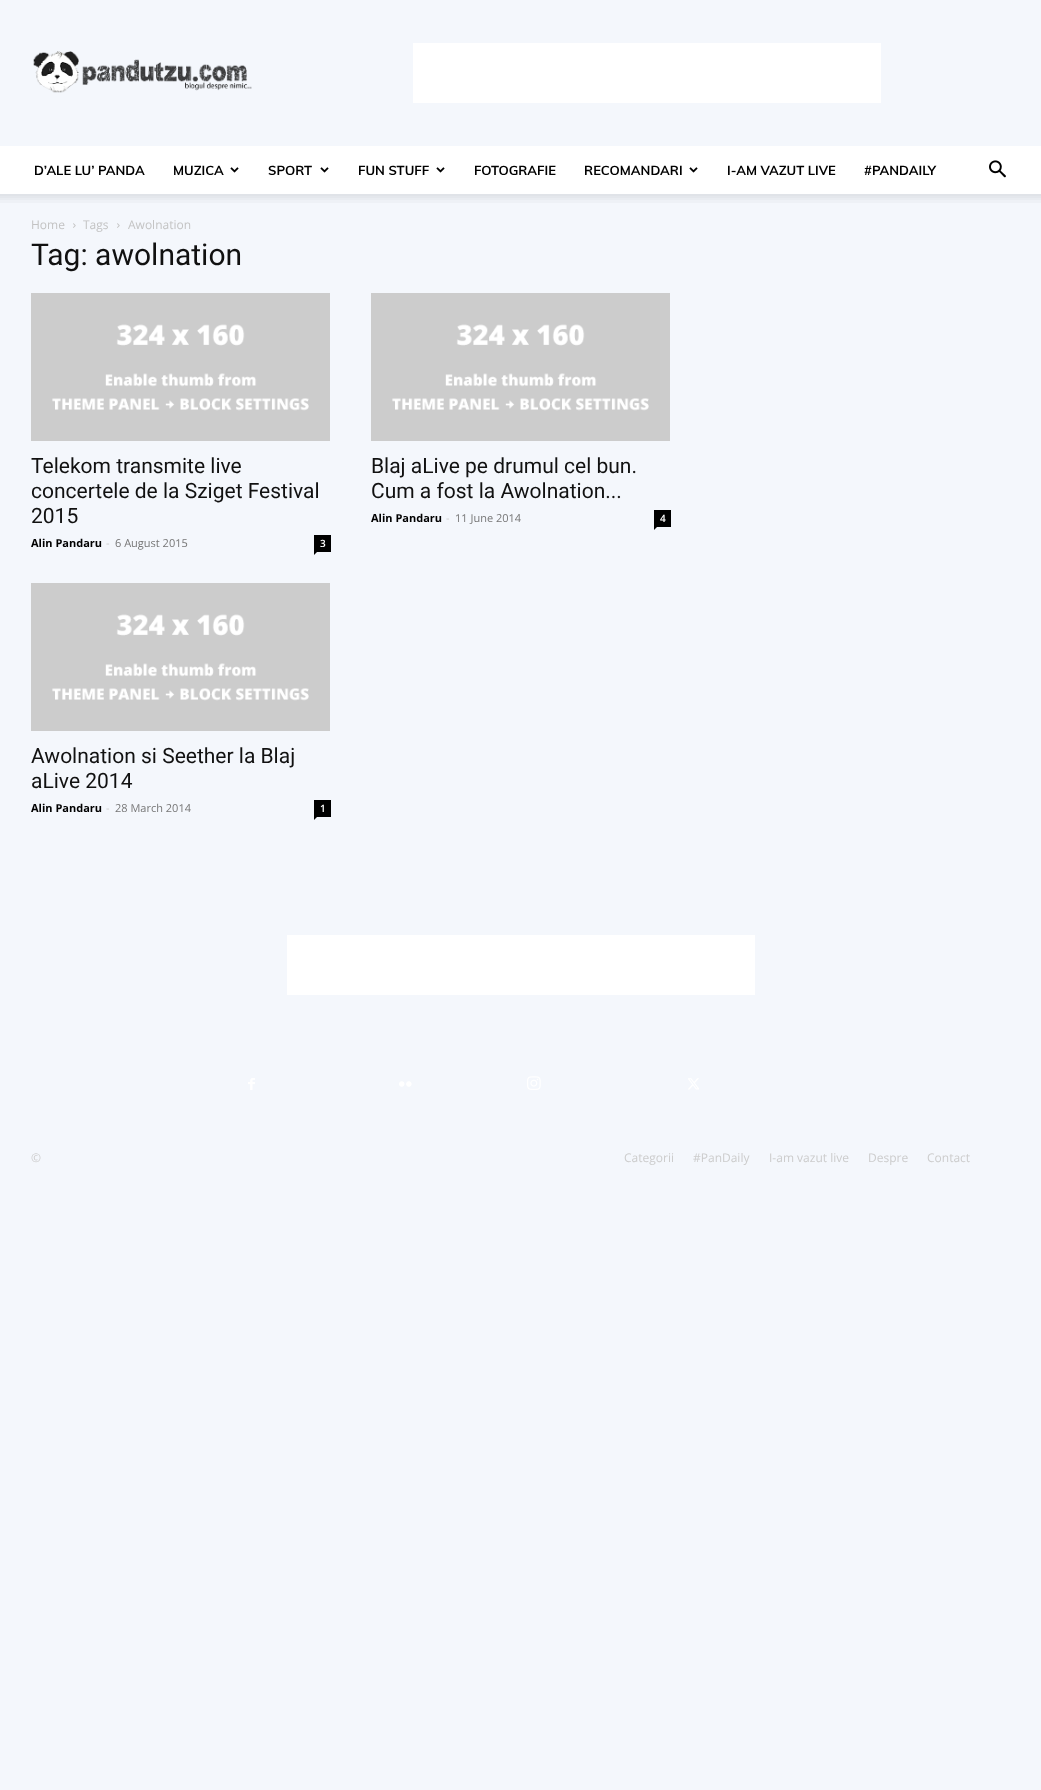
async function draw(canvas) {
	canvas.width = 1041;
	canvas.height = 1790;
	const c = canvas.getContext('2d');
	c.miterLimit = 4;
	c.fontKerning = 'normal';
	async function loadImage(src) {
		const img = new Image();
		img.src = src;
		await img.decode();
		return img;
	}

	c.fillStyle = '#f4f7fc';
	c.fillRect(0, 0, 1041, 1790);
	c.drawImage(await loadImage('img1.png'), 33, 51, 219, 42);
	c.fillStyle = '#fff';
	c.fillRect(413, 43, 468, 60);
	c.fillRect(0, 146, 1041, 48);
	c.font = 'bold 13px Muli';
	c.fillStyle = '#000';
	c.fillText('D’ALE LU’ PANDA', 34, 175);
	c.fillText('MUZICA', 173, 175);
	c.drawImage(await loadImage('img2.png'), 230, 167, 9, 6);
	c.fillText('SPORT', 268, 175);
	c.drawImage(await loadImage('img2.png'), 320, 167, 9, 6);
	c.fillText('FUN STUFF', 358, 175);
	c.drawImage(await loadImage('img2.png'), 436, 167, 9, 6);
	c.fillText('FOTOGRAFIE', 474, 175);
	c.fillText('RECOMANDARI', 584, 175);
	c.drawImage(await loadImage('img2.png'), 689, 167, 9, 6);
	c.fillText('I-AM VAZUT LIVE', 727, 175);
	c.fillText('#PANDAILY', 864, 175);
	c.drawImage(await loadImage('img3.png'), 989, 160, 17, 18);
	c.drawImage(await loadImage('img4.png'), 0, 194, 1041, 9);
	c.font = '12px Open Sans';
	c.fillStyle = '#c3c3c3';
	c.fillText('Home', 31, 229);
	c.drawImage(await loadImage('img5.png'), 73, 223, 3, 5);
	c.fillText('Tags', 83, 229);
	c.drawImage(await loadImage('img5.png'), 117, 223, 3, 5);
	c.fillText('Awolnation', 128, 229);
	c.font = '30px Roboto';
	c.fillStyle = '#111';
	c.fillText('Tag: awolnation', 31, 265);
	c.drawImage(await loadImage('img6.png'), 31, 293, 299, 148);
	c.font = '21px Roboto';
	for (const [text, x, y] of [
		['Telekom transmite live', 31, 473],
		['concertele de la Sziget Festival', 31, 498],
		['2015', 31, 523],
	]) {
		c.fillText(text, x, y);
	}
	c.font = 'bold 11px Open Sans';
	c.fillStyle = '#000';
	c.fillText('Alin Pandaru', 31, 547);
	c.font = '11px Open Sans';
	c.fillStyle = '#ccc';
	c.fillText('-', 106, 547);
	c.fillStyle = '#767676';
	c.fillText('6 August 2015', 115, 547);
	c.fillStyle = '#000';
	c.fillRect(314, 535, 17, 17);
	c.font = '600 10px Open Sans';
	c.fillStyle = '#fff';
	c.fillText('3', 320, 547);
	c.fillStyle = '#000';
	c.beginPath();
	c.moveTo(314, 552);
	c.lineTo(317, 552);
	c.lineTo(314, 555);
	c.closePath();
	c.fill();
	c.drawImage(await loadImage('img6.png'), 371, 293, 299, 148);
	c.font = '21px Roboto';
	c.fillStyle = '#111';
	c.fillText('Blaj aLive pe drumul cel bun.', 371, 473);
	c.fillText('Cum a fost la Awolnation...', 371, 498);
	c.font = 'bold 11px Open Sans';
	c.fillStyle = '#000';
	c.fillText('Alin Pandaru', 371, 522);
	c.font = '11px Open Sans';
	c.fillStyle = '#ccc';
	c.fillText('-', 446, 522);
	c.fillStyle = '#767676';
	c.fillText('11 June 2014', 455, 522);
	c.fillStyle = '#000';
	c.fillRect(654, 510, 17, 17);
	c.font = '600 10px Open Sans';
	c.fillStyle = '#fff';
	c.fillText('4', 660, 522);
	c.fillStyle = '#000';
	c.beginPath();
	c.moveTo(654, 527);
	c.lineTo(657, 527);
	c.lineTo(654, 530);
	c.closePath();
	c.fill();
	c.drawImage(await loadImage('img7.png'), 31, 583, 299, 148);
	c.font = '21px Roboto';
	c.fillStyle = '#111';
	c.fillText('Awolnation si Seether la Blaj', 31, 763);
	c.fillText('aLive 2014', 31, 788);
	c.font = 'bold 11px Open Sans';
	c.fillStyle = '#000';
	c.fillText('Alin Pandaru', 31, 812);
	c.font = '11px Open Sans';
	c.fillStyle = '#ccc';
	c.fillText('-', 106, 812);
	c.fillStyle = '#767676';
	c.fillText('28 March 2014', 115, 812);
	c.fillStyle = '#000';
	c.fillRect(314, 800, 17, 17);
	c.font = '600 10px Open Sans';
	c.fillStyle = '#fff';
	c.fillText('1', 320, 812);
	c.fillStyle = '#000';
	c.beginPath();
	c.moveTo(314, 817);
	c.lineTo(317, 817);
	c.lineTo(314, 820);
	c.closePath();
	c.fill();
	c.fillStyle = '#fff';
	c.fillRect(287, 935, 468, 60);
	c.drawImage(await loadImage('img8.png'), 248, 1078, 7, 12);
	c.drawImage(await loadImage('img9.png'), 399, 1081, 13, 6);
	c.drawImage(await loadImage('img10.png'), 527, 1076, 14, 14);
	c.drawImage(await loadImage('img11.png'), 688, 1078, 11, 12);
	c.font = '12px Open Sans';
	c.fillStyle = '#ccc';
	for (const [text, x, y] of [
		['©', 31, 1162],
		['Categorii', 624, 1162],
		['#PanDaily', 693, 1162],
		['I-am vazut live', 769, 1162],
		['Despre', 868, 1162],
		['Contact', 927, 1162],
	]) {
		c.fillText(text, x, y);
	}
}

draw(document.querySelector('canvas'));
